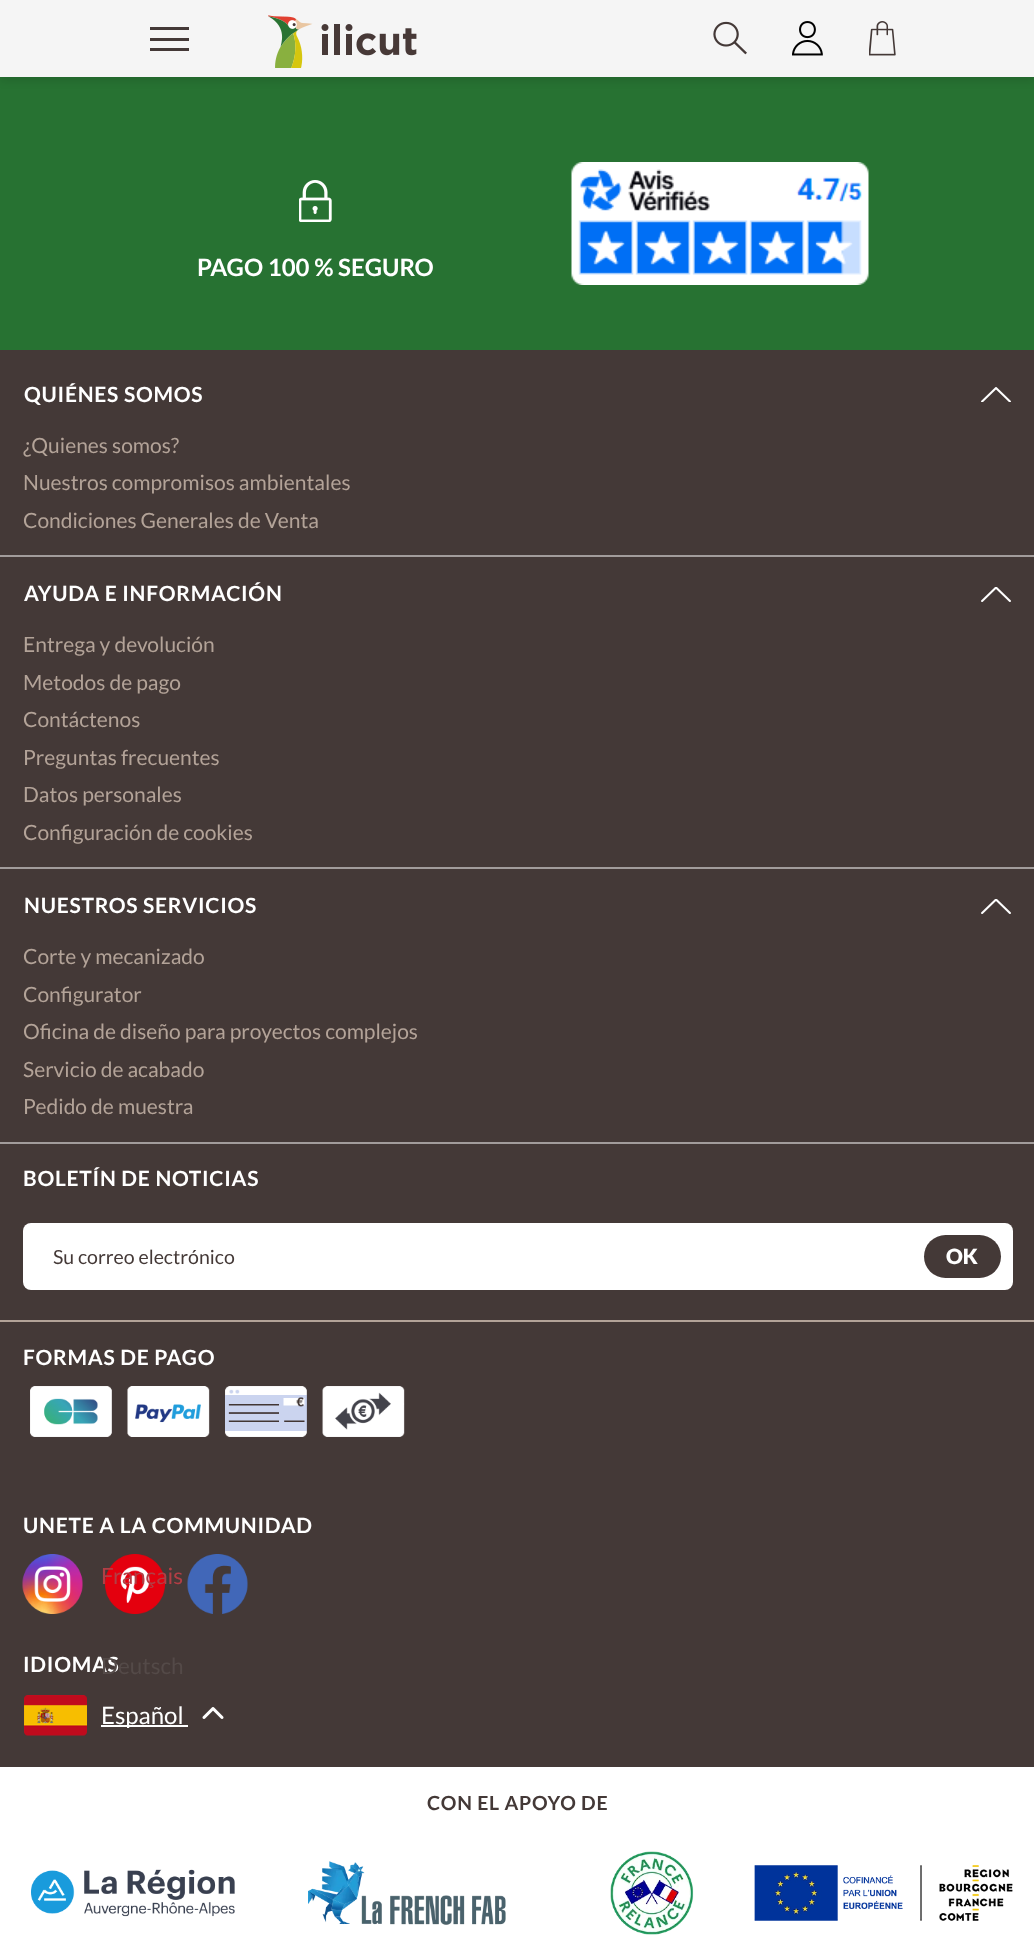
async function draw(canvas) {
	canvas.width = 1034;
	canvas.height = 1945;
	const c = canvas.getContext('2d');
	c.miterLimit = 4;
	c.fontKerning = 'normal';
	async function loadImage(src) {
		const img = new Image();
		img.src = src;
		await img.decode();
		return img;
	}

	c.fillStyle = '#277232';
	c.fillRect(0, 0, 1034, 1945);
	c.fillStyle = '#0000001a';
	c.filter = 'blur(4.5px)';
	c.beginPath();
	c.rect(0, 5, 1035, 76);
	c.fill();
	c.filter = 'none';
	for (const [x, y, w, h, color] of [
		[0, 0, 1034, 77, '#f5f5f5'],
		[150, 27, 39, 3, '#443937'],
		[150, 38, 39, 3, '#443937'],
		[150, 48, 39, 3, '#443937'],
	]) {
		c.fillStyle = color;
		c.fillRect(x, y, w, h);
	}
	c.drawImage(await loadImage('img1.png'), 268, 15, 149, 53);
	c.drawImage(await loadImage('img2.png'), 713, 21, 34, 34);
	c.drawImage(await loadImage('img3.png'), 792, 21, 31, 35);
	c.drawImage(await loadImage('img4.png'), 869, 21, 27, 35);
	c.drawImage(await loadImage('img5.png'), 299, 180, 33, 42);
	c.font = 'bold 24px Lato';
	c.fillStyle = '#fff';
	c.fillText('PAGO 100 % SEGURO', 197, 276);
	c.drawImage(await loadImage('img6.png'), 571, 162, 298, 123);
	c.fillStyle = '#443937';
	c.fillRect(0, 350, 1034, 1417);
	c.fillStyle = '#b3a398';
	c.fillRect(0, 1320, 1034, 2);
	c.letterSpacing = '0.75px';
	c.font = 'bold 21px Lato';
	c.fillStyle = '#fff';
	c.fillText('QUIÉNES SOMOS', 24, 402);
	c.drawImage(await loadImage('img7.png'), 981, 387, 30, 15);
	c.letterSpacing = '0px';
	c.font = '21px Lato';
	c.fillStyle = '#b3a398';
	for (const [text, x, y] of [
		['¿Quienes somos?', 23, 453],
		['Nuestros compromisos ambientales', 23, 490],
		['Condiciones Generales de Venta', 23, 528],
	]) {
		c.fillText(text, x, y);
	}
	c.fillStyle = '#a29c9b';
	c.fillRect(0, 555, 1034, 2);
	c.letterSpacing = '0.75px';
	c.font = 'bold 21px Lato';
	c.fillStyle = '#fff';
	c.fillText('AYUDA E INFORMACIÓN', 24, 601);
	c.drawImage(await loadImage('img8.png'), 981, 587, 30, 15);
	c.letterSpacing = '0px';
	c.font = '21px Lato';
	c.fillStyle = '#b3a398';
	for (const [text, x, y] of [
		['Entrega y devolución', 23, 652],
		['Metodos de pago', 23, 690],
		['Contáctenos', 23, 727],
		['Preguntas frecuentes', 23, 765],
		['Datos personales', 23, 802],
		['Configuración de cookies', 23, 840],
	]) {
		c.fillText(text, x, y);
	}
	c.fillStyle = '#a29c9b';
	c.fillRect(0, 867, 1034, 2);
	c.letterSpacing = '0.75px';
	c.font = 'bold 21px Lato';
	c.fillStyle = '#fff';
	c.fillText('NUESTROS SERVICIOS', 24, 913);
	c.drawImage(await loadImage('img8.png'), 981, 899, 30, 15);
	c.letterSpacing = '0px';
	c.font = '21px Lato';
	c.fillStyle = '#b3a398';
	for (const [text, x, y] of [
		['Corte y mecanizado', 23, 964],
		['Configurator', 23, 1002],
		['Oficina de diseño para proyectos complejos', 23, 1039],
		['Servicio de acabado', 23, 1077],
		['Pedido de muestra', 23, 1114],
	]) {
		c.fillText(text, x, y);
	}
	c.fillStyle = '#a29c9b';
	c.fillRect(0, 1142, 1034, 2);
	c.letterSpacing = '0.75px';
	c.font = 'bold 21px Lato';
	c.fillStyle = '#fff';
	c.fillText('BOLETÍN DE NOTICIAS', 23, 1186);
	c.beginPath();
	c.roundRect(23, 1223, 990, 67, 8);
	c.fill();
	c.letterSpacing = '0px';
	c.font = '19.5px Lato';
	c.fillStyle = '#443937';
	c.fillText('Su correo electrónico', 53, 1264);
	c.beginPath();
	c.roundRect(924, 1235, 77, 43, 21.5);
	c.fill();
	c.font = '900 21px Lato';
	c.fillStyle = '#fff';
	c.fillText('OK', 946, 1264);
	c.letterSpacing = '0.75px';
	c.font = 'bold 21px Lato';
	c.fillText('FORMAS DE PAGO', 23, 1365);
	c.drawImage(await loadImage('img9.png'), 30, 1386, 82, 51);
	c.drawImage(await loadImage('img10.png'), 127, 1386, 83, 51);
	c.drawImage(await loadImage('img11.png'), 225, 1386, 82, 51);
	c.drawImage(await loadImage('img12.png'), 322, 1386, 83, 51);
	c.fillText('UNETE A LA COMMUNIDAD', 23, 1533);
	c.drawImage(await loadImage('img13.png'), 22, 1554, 61, 60);
	c.drawImage(await loadImage('img14.png'), 105, 1554, 60, 60);
	c.drawImage(await loadImage('img15.png'), 187, 1554, 61, 60);
	c.fillText('IDIOMAS', 23, 1672);
	c.letterSpacing = '0px';
	c.font = '22.5px Lato';
	c.fillStyle = '#b23e45';
	c.fillText('Français', 101, 1584);
	c.fillStyle = '#544a48';
	c.fillText('Deutsch', 101, 1674);
	c.drawImage(await loadImage('img16.png'), 24, 1695, 63, 41);
	c.fillStyle = '#fff';
	c.fillRect(101, 1725, 87, 2);
	c.font = '24px Lato';
	c.fillText('Español', 101, 1724);
	c.drawImage(await loadImage('img17.png'), 202, 1707, 22, 12);
	c.fillRect(0, 1767, 1034, 178);
	c.letterSpacing = '0.75px';
	c.font = 'bold 19.5px Lato';
	c.fillStyle = '#443937';
	c.fillText('CON EL APOYO DE', 427, 1810);
	c.drawImage(await loadImage('img18.png'), 31, 1869, 204, 48);
	c.drawImage(await loadImage('img19.png'), 308, 1851, 386, 84);
	c.drawImage(await loadImage('img20.png'), 754, 1865, 259, 56);
}

draw(document.querySelector('canvas'));
